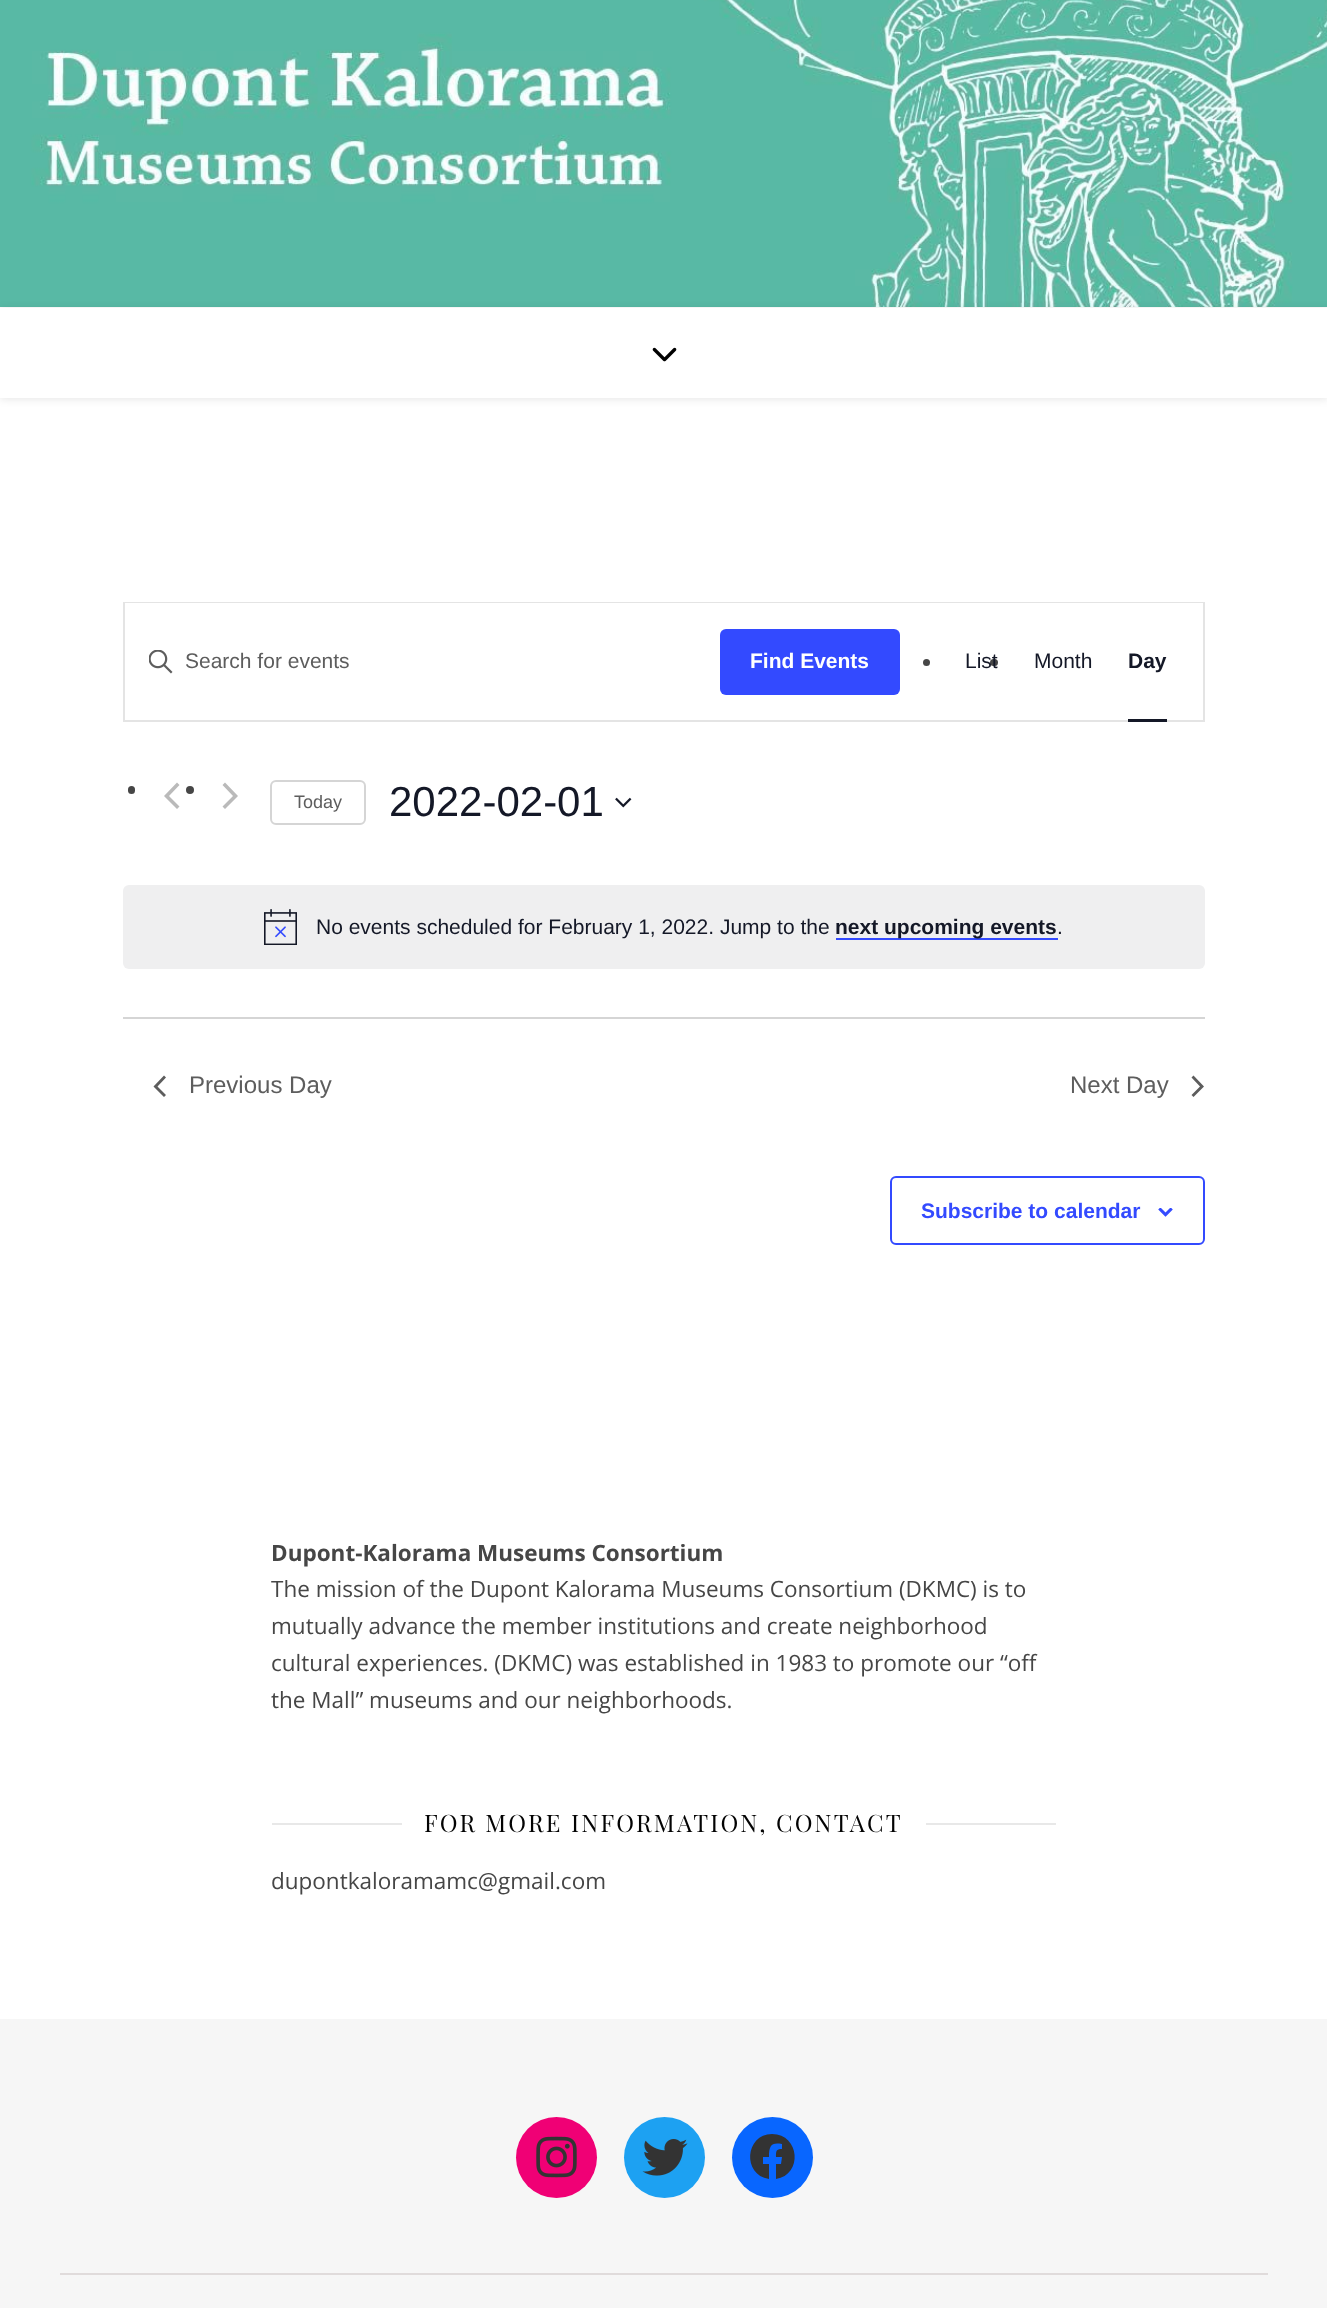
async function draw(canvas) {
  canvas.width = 1327;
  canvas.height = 2308;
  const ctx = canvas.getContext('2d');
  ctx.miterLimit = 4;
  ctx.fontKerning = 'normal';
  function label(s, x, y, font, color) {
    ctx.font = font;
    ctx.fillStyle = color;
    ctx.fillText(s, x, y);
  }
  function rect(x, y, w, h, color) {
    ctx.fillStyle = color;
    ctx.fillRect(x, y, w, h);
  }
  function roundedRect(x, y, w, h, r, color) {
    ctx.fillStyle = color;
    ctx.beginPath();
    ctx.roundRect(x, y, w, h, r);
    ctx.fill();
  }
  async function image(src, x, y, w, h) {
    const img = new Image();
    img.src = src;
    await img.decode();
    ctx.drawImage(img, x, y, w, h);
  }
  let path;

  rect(0, 0, 1327, 2308, '#fff');
  await image('assets/img1.png', 0, 0, 1327, 307);
  ctx.fillStyle = '#0000001a';
  ctx.filter = 'blur(4px)';
  ctx.beginPath();
  ctx.rect(0, 309, 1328, 90);
  ctx.fill();
  ctx.filter = 'none';
  rect(0, 308, 1327, 90, '#fff');
  await image('assets/img2.png', 652, 347, 25, 15);
  ctx.strokeStyle = '#e4e4e4';
  ctx.lineWidth = 2;
  ctx.strokeRect(124, 603, 1080, 118);
  rect(125, 603, 1078, 1, '#fff');
  await image('assets/img3.png', 149, 650, 24, 24);
  label('Search for events', 185, 668, '21px Liberation Sans', '#5d5d5d');
  roundedRect(720, 629, 180, 66, 6, '#334aff');
  label('Find Events', 750, 668, 'bold 21px Liberation Sans', '#fff');
  ctx.fillStyle = '#464646';
  ctx.beginPath();
  ctx.arc(926.5, 662.5, 3.5, 0, 2 * Math.PI);
  ctx.fill();
  roundedRect(990, 659, 8, 7, 3.5, '#464646');
  label('List', 965, 668, '21px Liberation Sans', '#141827');
  label('Month', 1034, 668, '21px Liberation Sans', '#141827');
  label('Day', 1128, 668, 'bold 21px Liberation Sans', '#141827');
  rect(1128, 719, 39, 3, '#141827');
  roundedRect(128, 786, 7, 8, 3.5, '#464646');
  ctx.fillStyle = '#bababa';
  path = new Path2D('M179.5 806.5L177 809L164 796L177 782.5L179.5 785L169 796Z');
  ctx.fill(path);
  ctx.fillStyle = '#464646';
  ctx.beginPath();
  ctx.arc(190, 790, 4, 0, 2 * Math.PI);
  ctx.fill();
  ctx.fillStyle = '#bababa';
  path = new Path2D('M222.5 785L225 782.5L238 796L225 809L222.5 806.5L233 796Z');
  ctx.fill(path);
  ctx.beginPath();
  ctx.roundRect(271, 781, 94, 43, 5);
  ctx.strokeStyle = '#d5d5d5';
  ctx.stroke();
  label('Today', 294, 808, '18px Liberation Sans', '#5d5d5d');
  label('2022-02-01', 389, 816, '42px Liberation Sans', '#141827');
  await image('assets/img4.png', 615, 797, 17, 11);
  roundedRect(123, 885, 1082, 84, 6, '#efeff0');
  await image('assets/img5.png', 264, 909, 33, 36);
  label('No events scheduled for February 1, 2022. Jump to the', 316, 934, '21px Liberation Sans', '#141827');
  rect(836, 938, 222, 2, '#334aff');
  label('next upcoming events', 835, 934, 'bold 21px Liberation Sans', '#141827');
  label('.', 1057, 934, '21px Liberation Sans', '#141827');
  rect(123, 1017, 1082, 2, '#d5d5d5');
  ctx.fillStyle = '#5d5d5d';
  path = new Path2D('M166 1095L164 1097L153.5 1086.5L164 1075.5L166 1077.5L157.5 1086.5Z');
  ctx.fill(path);
  label('Previous Day', 189, 1093, '24px Liberation Sans', '#5d5d5d');
  label('Next Day', 1070, 1093, '24px Liberation Sans', '#5d5d5d');
  path = new Path2D('M1191.5 1077.5L1193.5 1075.5L1204 1086.5L1193.5 1097L1191.5 1095L1200 1086.5Z');
  ctx.fill(path);
  ctx.beginPath();
  ctx.roundRect(891, 1177, 313, 67, 5);
  ctx.strokeStyle = '#334aff';
  ctx.stroke();
  label('Subscribe to calendar', 921, 1218, 'bold 21px Liberation Sans', '#334aff');
  await image('assets/img6.png', 1158, 1208, 15, 9);
  label('Dupont-Kalorama Museums Consortium', 271, 1561, 'bold 22.5px Open Sans', '#464646');
  label('The mission of the Dupont Kalorama Museums Consortium (DKMC) is to', 271, 1597, '22.5px Open Sans', '#464646');
  label('mutually advance the member institutions and create neighborhood', 271, 1634, '22.5px Open Sans', '#464646');
  label('cultural experiences. (DKMC) was established in 1983 to promote our “off', 271, 1671, '22.5px Open Sans', '#464646');
  label('the Mall” museums and our neighborhoods.', 271, 1708, '22.5px Open Sans', '#464646');
  rect(272, 1823, 130, 2, '#e8e8e8');
  ctx.letterSpacing = '2.25px';
  label('FOR MORE INFORMATION, CONTACT', 424, 1832, '24px Playfair Display', '#030303');
  rect(926, 1823, 130, 2, '#e8e8e8');
  ctx.letterSpacing = '0px';
  label('dupontkaloramamc@gmail.com', 271, 1889, '22.5px Open Sans', '#464646');
  rect(0, 2019, 1327, 289, '#f6f6f6');
  rect(60, 2273, 1208, 2, '#e0dbdb');
  ctx.fillStyle = '#f00075';
  ctx.beginPath();
  ctx.arc(556.5, 2157.5, 40.5, 0, 2 * Math.PI);
  ctx.fill();
  await image('assets/img7.png', 536, 2136, 41, 42);
  ctx.fillStyle = '#1da1f2';
  ctx.beginPath();
  ctx.arc(664.5, 2157.5, 40.5, 0, 2 * Math.PI);
  ctx.fill();
  await image('assets/img8.png', 642, 2139, 46, 37);
  ctx.fillStyle = '#0866ff';
  ctx.beginPath();
  ctx.arc(772.5, 2157.5, 40.5, 0, 2 * Math.PI);
  ctx.fill();
  ctx.fillStyle = '#333';
  path = new Path2D('M772 2134C745 2134 742 2175 769 2179V2164H763V2157H769C769 2146 771 2142 782 2144V2149C776 2149 776 2151 776 2157H782L781 2164H776V2179C803 2175 800 2134 772 2134Z');
  ctx.fill(path);
}

draw(document.querySelector('canvas'));
